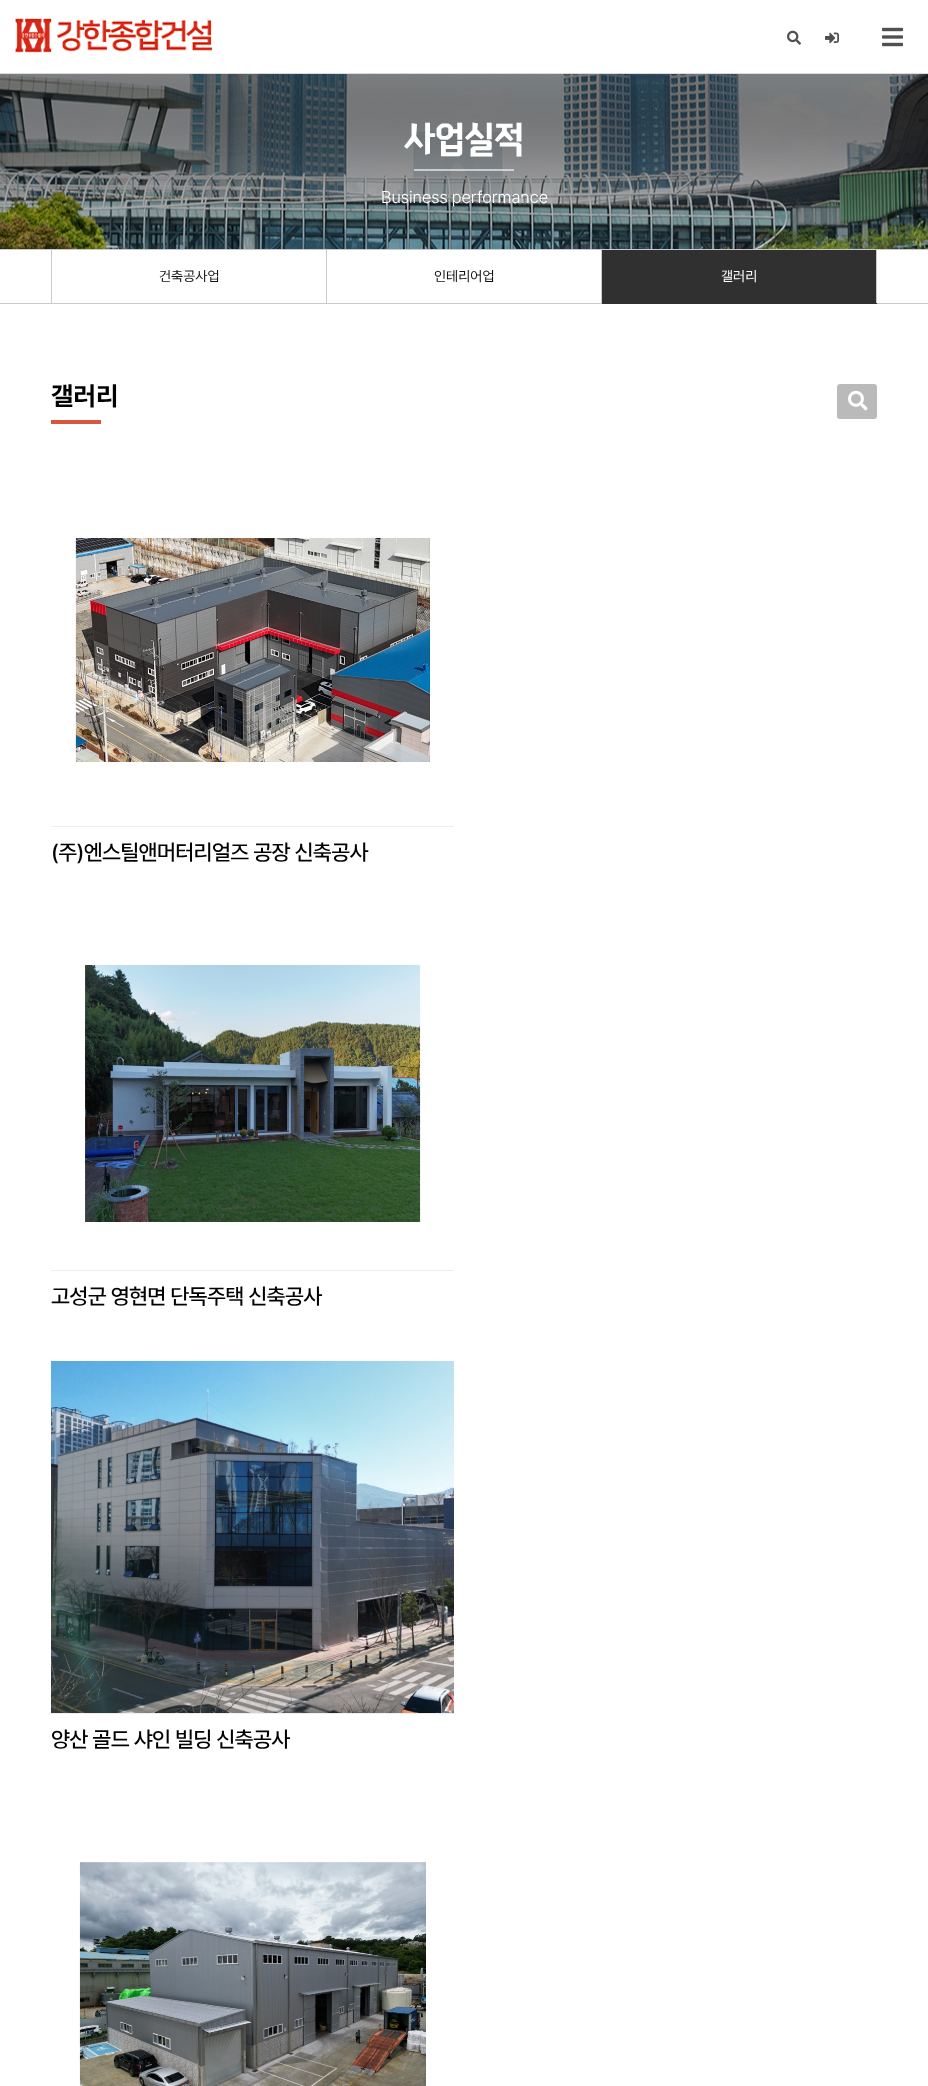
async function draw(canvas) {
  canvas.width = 928;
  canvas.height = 2086;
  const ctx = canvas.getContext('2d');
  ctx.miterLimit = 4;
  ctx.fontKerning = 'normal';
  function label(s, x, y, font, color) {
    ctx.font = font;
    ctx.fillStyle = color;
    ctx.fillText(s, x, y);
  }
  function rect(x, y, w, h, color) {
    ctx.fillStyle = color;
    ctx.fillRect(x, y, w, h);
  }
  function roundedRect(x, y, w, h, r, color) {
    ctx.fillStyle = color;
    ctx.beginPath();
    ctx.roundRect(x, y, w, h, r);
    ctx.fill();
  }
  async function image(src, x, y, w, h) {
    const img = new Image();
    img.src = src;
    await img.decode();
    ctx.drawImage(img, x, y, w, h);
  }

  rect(0, 0, 928, 2086, '#fff');
  rect(0, 73, 928, 1, '#dbdbdb');
  await image('assets/img1.png', 15, 18, 197, 35);
  await image('assets/img2.png', 787, 30, 14, 15);
  await image('assets/img3.png', 825, 32, 14, 12);
  await image('assets/img4.png', 882, 27, 21, 20);
  await image('assets/img5.png', 0, 74, 928, 175);
  label('사업실적', 404, 151, 'bold 36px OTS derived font', '#fff');
  rect(414, 169, 100, 2, '#ffffff99');
  label('Business performance', 381, 203, '300 17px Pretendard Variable', '#fff');
  rect(0, 249, 928, 1, '#cacaca');
  rect(0, 303, 928, 1, '#cacaca');
  rect(51, 250, 1, 54, '#cacaca');
  rect(326, 250, 1, 54, '#cacaca');
  label('건축공사업', 159, 281, '14px Pretendard Variable', '#101010');
  rect(601, 250, 1, 54, '#cacaca');
  label('인테리어업', 434, 281, '14px Pretendard Variable', '#101010');
  rect(602, 250, 274, 53, '#303030');
  rect(876, 250, 1, 54, '#cacaca');
  rect(602, 303, 275, 1, '#303030');
  label('갤러리', 721, 281, '14px Pretendard Variable', '#fff');
  label('갤러리', 51, 405, 'bold 26px Pretendard Variable', '#000');
  rect(51, 420, 50, 4, '#da553d');
  roundedRect(837, 384, 40, 35, 3, '#bababa');
  await image('assets/img6.png', 848, 390, 20, 21);
  rect(51, 826, 403, 1, '#eee');
  await image('assets/img7.png', 75, 538, 355, 224);
  ctx.letterSpacing = '-0.7px';
  label('(주)엔스틸앤머터리얼즈 공장 신축공사', 51, 860, '500 22px Pretendard Variable', '#000');
  rect(51, 1270, 403, 1, '#eee');
  await image('assets/img8.png', 85, 965, 336, 257);
  label('고성군 영현면 단독주택 신축공사', 51, 1304, '500 22px Pretendard Variable', '#000');
  rect(51, 1713, 403, 1, '#eee');
  await image('assets/img9.png', 51, 1361, 403, 352);
  label('양산 골드 샤인 빌딩 신축공사', 51, 1747, '500 22px Pretendard Variable', '#000');
  await image('assets/img10.png', 79, 1862, 347, 224);
}

draw(document.querySelector('canvas'));
